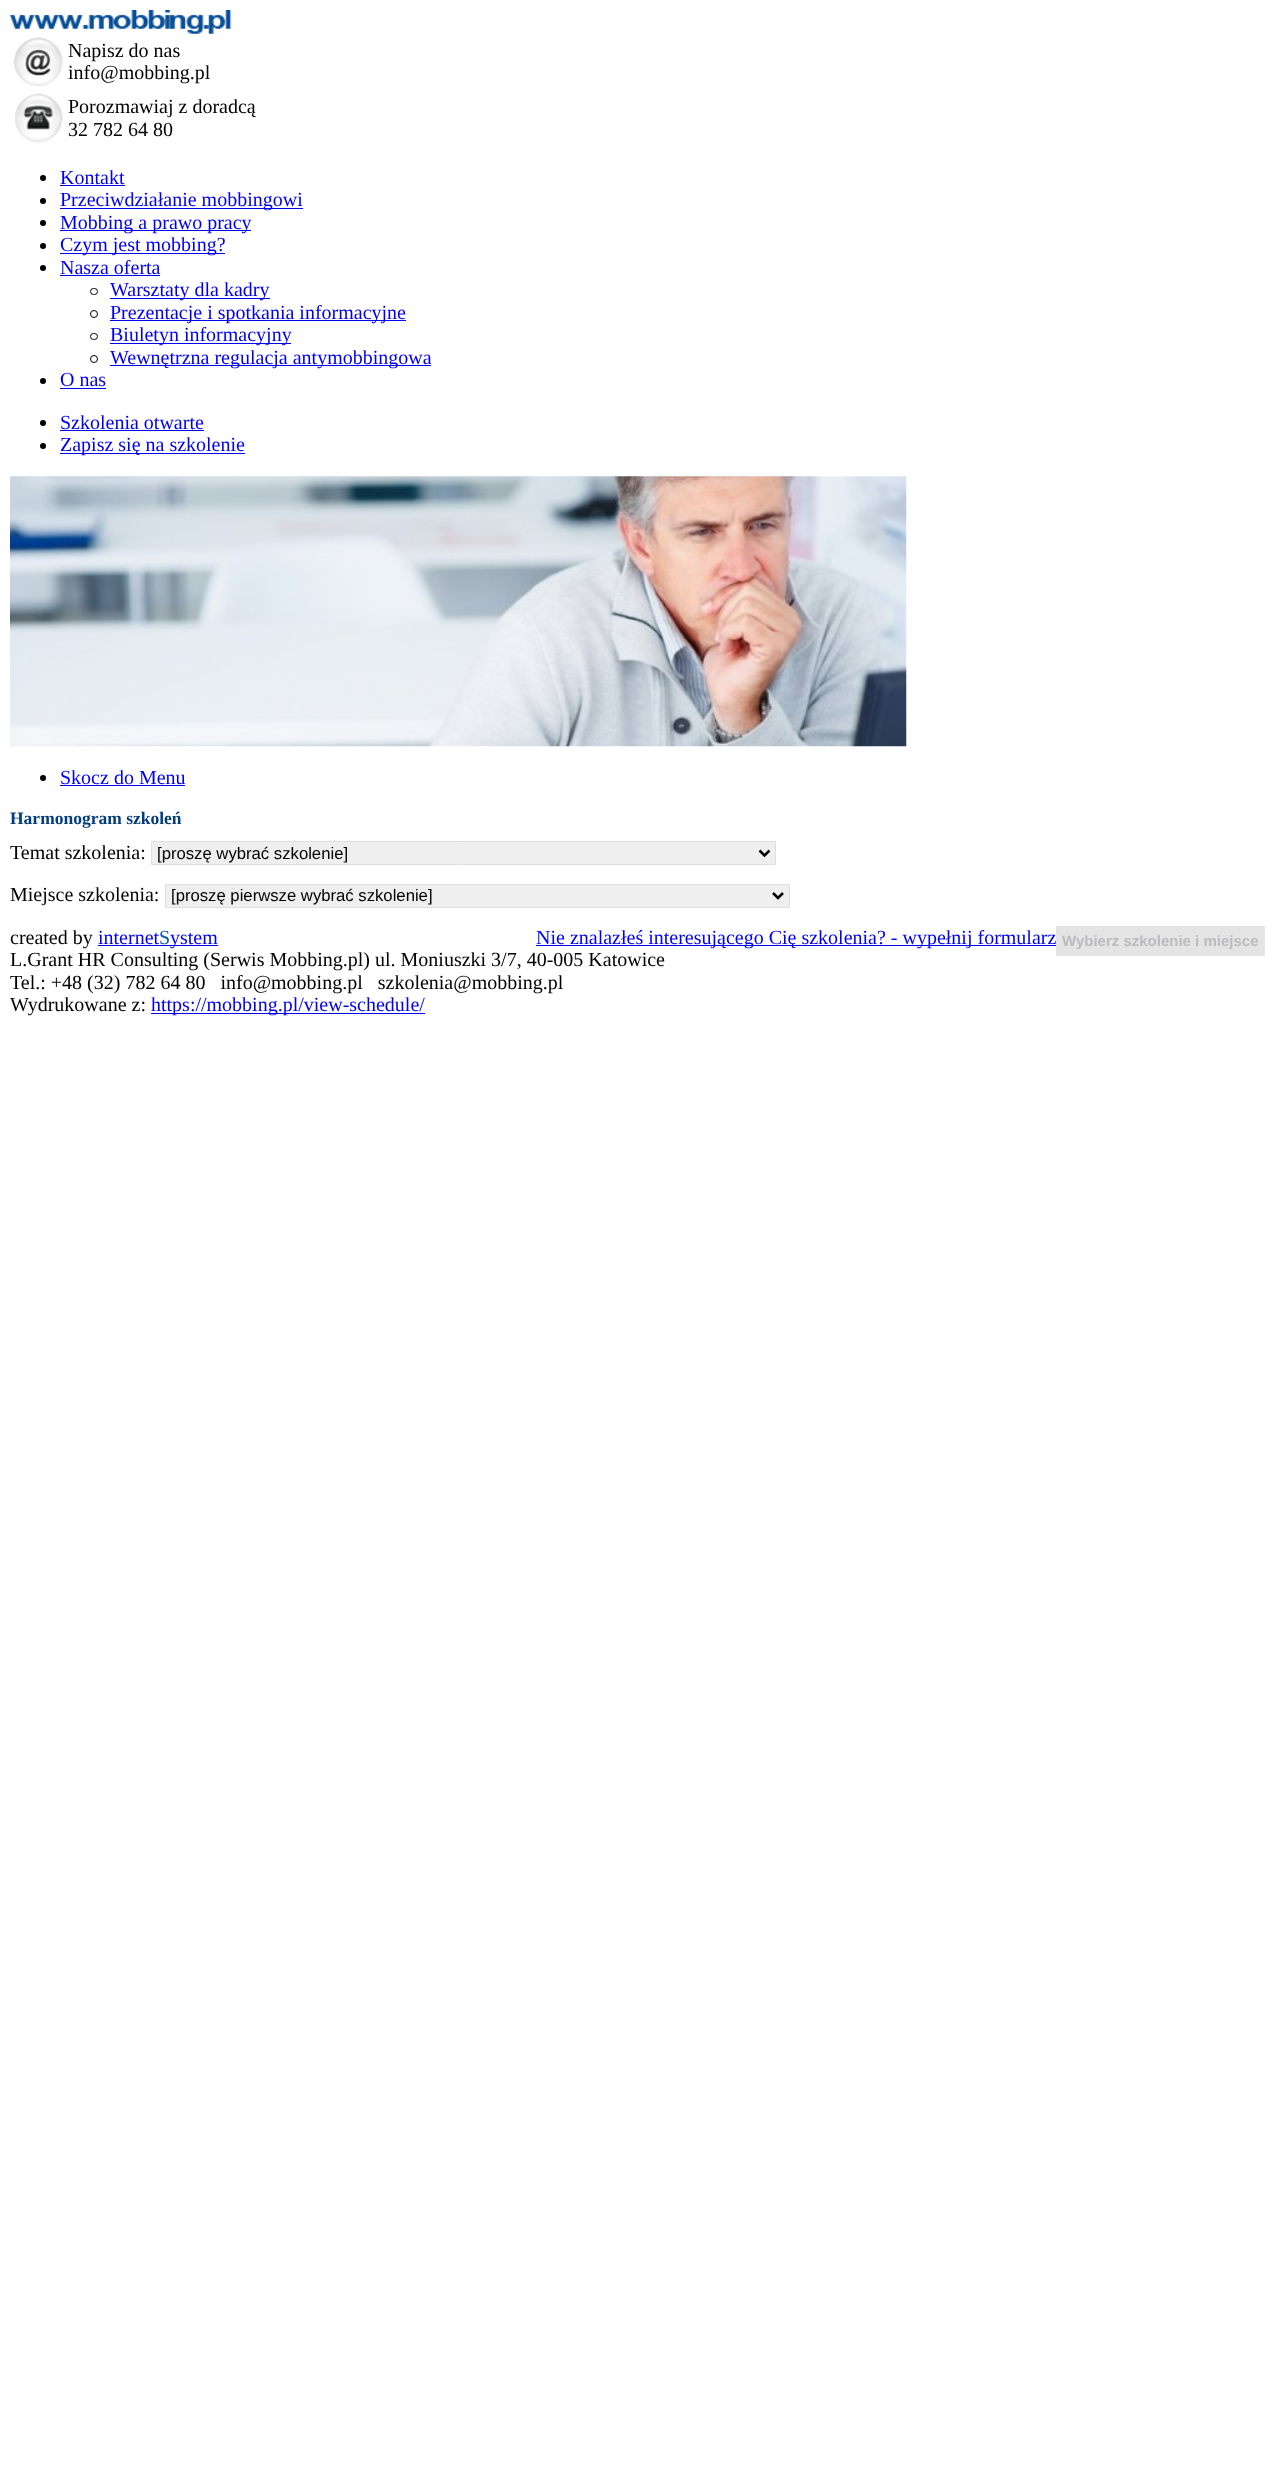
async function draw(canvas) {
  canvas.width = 1275;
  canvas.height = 2476;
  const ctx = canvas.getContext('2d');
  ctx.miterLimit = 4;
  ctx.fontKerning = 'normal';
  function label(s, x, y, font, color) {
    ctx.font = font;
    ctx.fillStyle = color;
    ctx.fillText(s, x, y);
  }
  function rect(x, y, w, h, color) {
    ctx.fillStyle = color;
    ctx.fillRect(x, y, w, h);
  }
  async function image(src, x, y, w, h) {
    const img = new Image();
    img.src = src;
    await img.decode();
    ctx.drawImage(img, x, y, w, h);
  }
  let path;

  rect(0, 0, 1275, 2476, '#fff');
  await image('assets/img1.png', 10, 10, 222, 24);
  await image('assets/img2.png', 13, 37, 50, 50);
  label('Napisz do nas', 68, 57, '20px Liberation Serif', '#000');
  label('info@mobbing.pl', 68, 79, '20px Liberation Serif', '#000');
  await image('assets/img3.png', 15, 93, 48, 50);
  label('Porozmawiaj z doradcą', 68, 113, '20px Liberation Serif', '#000');
  label('32 782 64 80', 68, 136, '20px Liberation Serif', '#000');
  ctx.beginPath();
  ctx.arc(43, 178, 3, 0, 2 * Math.PI);
  ctx.fill();
  label('Kontakt', 60, 184, '20px Liberation Serif', '#00e');
  rect(60, 185, 65, 1, '#00e');
  ctx.fillStyle = '#000';
  ctx.beginPath();
  ctx.arc(43, 201, 3, 0, 2 * Math.PI);
  ctx.fill();
  rect(60, 208, 243, 1, '#00e');
  label('Przeciwdziałanie mobbingowi', 60, 206, '20px Liberation Serif', '#00e');
  ctx.fillStyle = '#000';
  ctx.beginPath();
  ctx.arc(43, 223, 3, 0, 2 * Math.PI);
  ctx.fill();
  rect(60, 230, 191, 1, '#00e');
  label('Mobbing a prawo pracy', 60, 229, '20px Liberation Serif', '#00e');
  ctx.fillStyle = '#000';
  ctx.beginPath();
  ctx.arc(43, 246, 3, 0, 2 * Math.PI);
  ctx.fill();
  rect(60, 253, 165, 1, '#00e');
  label('Czym jest mobbing?', 60, 251, '20px Liberation Serif', '#00e');
  ctx.fillStyle = '#000';
  ctx.beginPath();
  ctx.arc(43, 268, 3, 0, 2 * Math.PI);
  ctx.fill();
  label('Nasza oferta', 60, 274, '20px Liberation Serif', '#00e');
  rect(60, 275, 100, 1, '#00e');
  ctx.beginPath();
  ctx.roundRect(90.5, 288.5, 7, 6, 3);
  ctx.strokeStyle = '#000';
  ctx.stroke();
  rect(110, 298, 160, 1, '#00e');
  label('Warsztaty dla kadry', 110, 296, '20px Liberation Serif', '#00e');
  ctx.beginPath();
  ctx.arc(94, 314, 3.5, 0, 2 * Math.PI);
  ctx.stroke();
  rect(110, 320, 296, 1, '#00e');
  label('Prezentacje i spotkania informacyjne', 110, 319, '20px Liberation Serif', '#00e');
  ctx.beginPath();
  ctx.roundRect(90.5, 333.5, 7, 6, 3);
  ctx.stroke();
  rect(110, 343, 181, 1, '#00e');
  label('Biuletyn informacyjny', 110, 341, '20px Liberation Serif', '#00e');
  ctx.beginPath();
  ctx.arc(94, 359, 3.5, 0, 2 * Math.PI);
  ctx.stroke();
  rect(110, 365, 321, 1, '#00e');
  label('Wewnętrzna regulacja antymobbingowa', 110, 364, '20px Liberation Serif', '#00e');
  ctx.fillStyle = '#000';
  ctx.beginPath();
  ctx.arc(43, 381, 3, 0, 2 * Math.PI);
  ctx.fill();
  label('O nas', 60, 386, '20px Liberation Serif', '#00e');
  rect(60, 388, 46, 1, '#00e');
  ctx.fillStyle = '#000';
  ctx.beginPath();
  ctx.arc(43, 423, 3, 0, 2 * Math.PI);
  ctx.fill();
  label('Szkolenia otwarte', 60, 429, '20px Liberation Serif', '#00e');
  rect(60, 430, 144, 1, '#00e');
  ctx.fillStyle = '#000';
  ctx.beginPath();
  ctx.arc(43, 446, 3, 0, 2 * Math.PI);
  ctx.fill();
  rect(60, 453, 185, 1, '#00e');
  label('Zapisz się na szkolenie', 60, 451, '20px Liberation Serif', '#00e');
  await image('assets/img4.png', 10, 476, 897, 271);
  ctx.fillStyle = '#000';
  ctx.beginPath();
  ctx.arc(43, 778, 3, 0, 2 * Math.PI);
  ctx.fill();
  label('Skocz do Menu', 60, 784, '20px Liberation Serif', '#00e');
  rect(60, 785, 125, 1, '#00e');
  label('Harmonogram szkoleń', 10, 824, 'bold 17.5px Liberation Serif', '#003d7a');
  label('Temat szkolenia:', 10, 859, '20px Liberation Serif', '#000');
  ctx.fillStyle = '#efefef';
  ctx.beginPath();
  ctx.rect(151.5, 841.5, 624, 23);
  ctx.fill();
  ctx.strokeStyle = '#dfdfdf';
  ctx.stroke();
  path = new Path2D('M759.5 850.5L764.5 855.5L769.5 850.5');
  ctx.strokeStyle = '#000';
  ctx.lineWidth = 2.5;
  ctx.stroke(path);
  label('[proszę wybrać szkolenie]', 157, 859, '16.7px Liberation Sans', '#000');
  label('Miejsce szkolenia:', 10, 901, '20px Liberation Serif', '#000');
  ctx.fillStyle = '#efefef';
  ctx.beginPath();
  ctx.rect(165.5, 884.5, 624, 23);
  ctx.fill();
  ctx.strokeStyle = '#dfdfdf';
  ctx.lineWidth = 1;
  ctx.stroke();
  path = new Path2D('M773 893L778 898L783 893');
  ctx.strokeStyle = '#000';
  ctx.lineWidth = 2.5;
  ctx.stroke(path);
  label('[proszę pierwsze wybrać szkolenie]', 171, 901, '16.7px Liberation Sans', '#000');
  rect(536, 945, 520, 1, '#00e');
  label('Nie znalazłeś interesującego Cię szkolenia? - wypełnij formularz', 536, 944, '20px Liberation Serif', '#00e');
  rect(1056, 926, 209, 30, '#e4e4e4');
  label('Wybierz szkolenie i miejsce', 1062, 946, 'bold 15px Liberation Sans', '#bbbbbe');
  label('created by', 10, 944, '20px Liberation Serif', '#000');
  label('internet', 98, 944, '20px Liberation Serif', '#00e');
  label('S', 159, 944, '20px Liberation Serif', '#0a539c');
  rect(98, 945, 120, 1, '#00e');
  label('ystem', 170, 944, '20px Liberation Serif', '#00e');
  label('L.Grant HR Consulting (Serwis Mobbing.pl) ul. Moniuszki 3/7, 40-005 Katowice', 10, 966, '20px Liberation Serif', '#000');
  label('Tel.: +48 (32) 782 64 80   info@mobbing.pl   szkolenia@mobbing.pl', 10, 989, '20px Liberation Serif', '#000');
  label('Wydrukowane z:', 10, 1011, '20px Liberation Serif', '#000');
  rect(151, 1013, 274, 1, '#00e');
  label('https://mobbing.pl/view-schedule/', 151, 1011, '20px Liberation Serif', '#00e');
}

draw(document.querySelector('canvas'));
